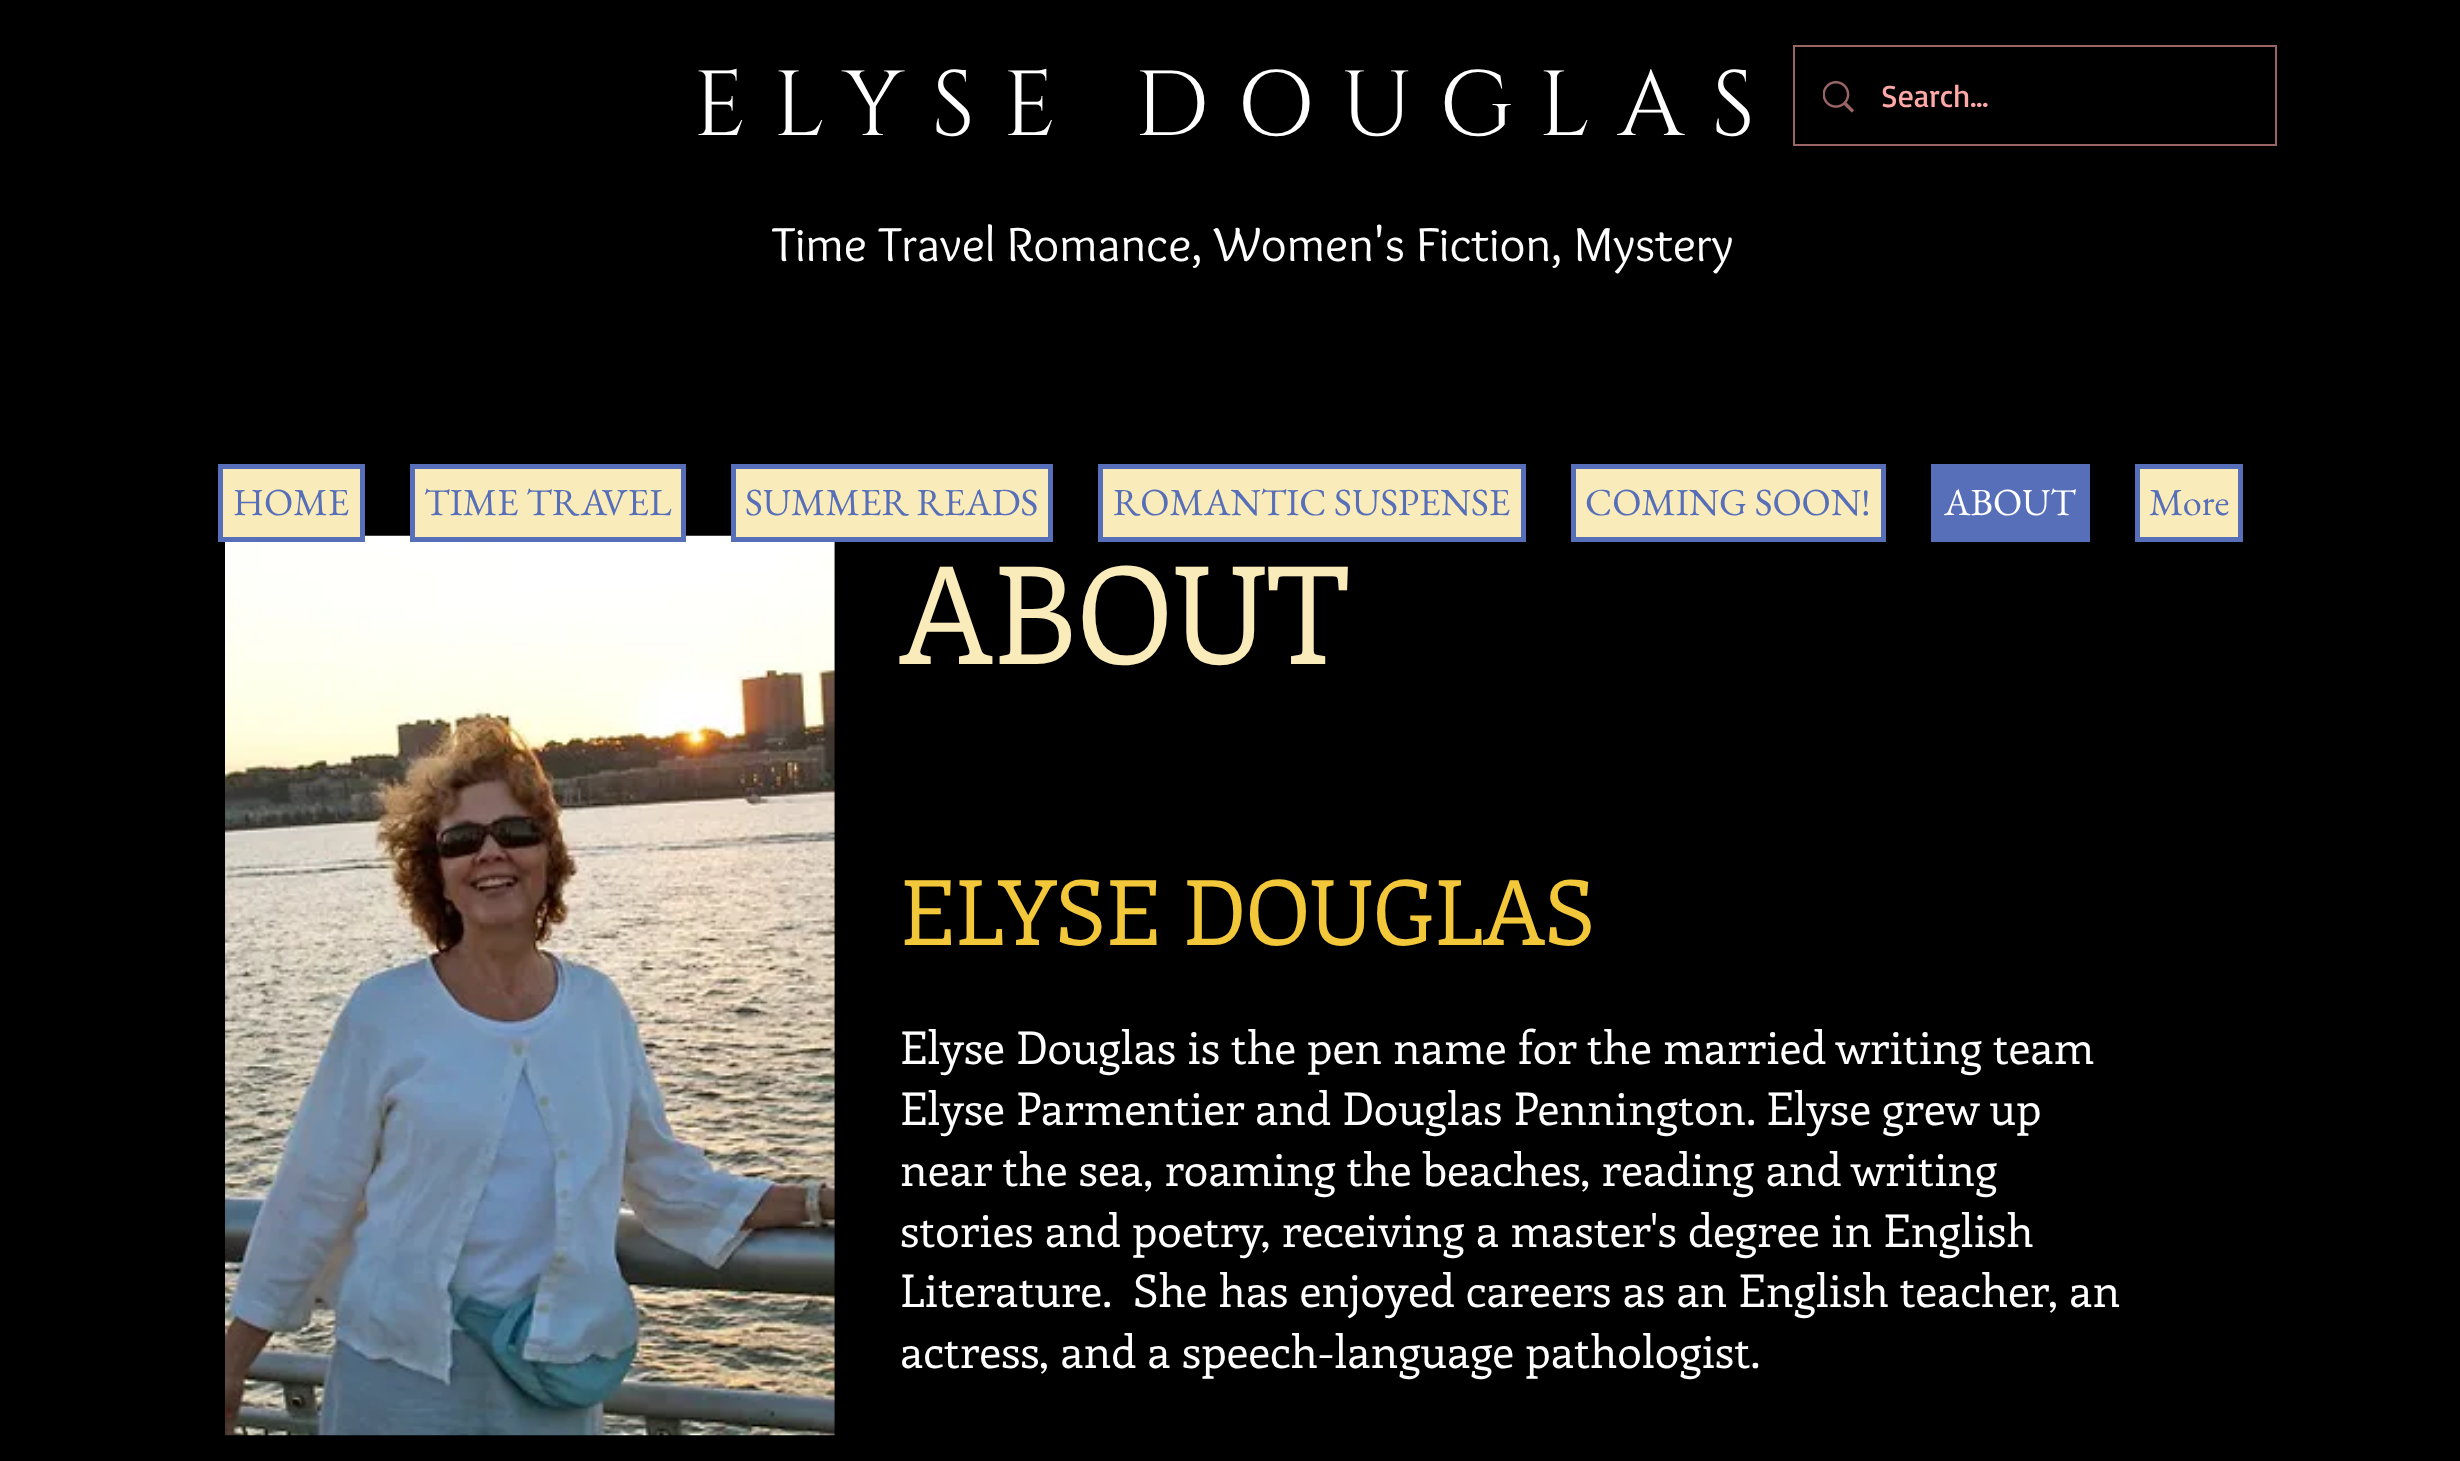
async function draw(canvas) {
  canvas.width = 2460;
  canvas.height = 1461;
  const ctx = canvas.getContext('2d');
  ctx.miterLimit = 4;
  ctx.fontKerning = 'normal';
  function label(s, x, y, font, color) {
    ctx.font = font;
    ctx.fillStyle = color;
    ctx.fillText(s, x, y);
  }
  function rect(x, y, w, h, color) {
    ctx.fillStyle = color;
    ctx.fillRect(x, y, w, h);
  }
  async function image(src, x, y, w, h) {
    const img = new Image();
    img.src = src;
    await img.decode();
    ctx.drawImage(img, x, y, w, h);
  }

  rect(0, 0, 2460, 1461, '#000');
  ctx.letterSpacing = '27.75px';
  label('ELYSE DOUGLAS', 693, 135, '92.25px Cinzel', '#fff');
  ctx.letterSpacing = '0px';
  label('Time Travel Romance, Women\'s Fiction, Mystery', 772, 261, '49.5px Overlock', '#fff');
  await image('assets/img2.png', 225, 535, 610, 901);
  ctx.fillStyle = '#faebbb';
  ctx.beginPath();
  ctx.rect(220.5, 466.5, 142, 73);
  ctx.fill();
  ctx.strokeStyle = '#566fb8';
  ctx.lineWidth = 5;
  ctx.stroke();
  label('HOME', 233, 515, '38.25px EB Garamond', '#566fb8');
  ctx.fillStyle = '#faebbb';
  ctx.beginPath();
  ctx.rect(412.5, 466.5, 271, 73);
  ctx.fill();
  ctx.stroke();
  label('TIME TRAVEL', 424, 515, '38.25px EB Garamond', '#566fb8');
  ctx.fillStyle = '#faebbb';
  ctx.beginPath();
  ctx.rect(733.5, 466.5, 317, 73);
  ctx.fill();
  ctx.stroke();
  label('SUMMER READS', 745, 515, '38.25px EB Garamond', '#566fb8');
  ctx.fillStyle = '#faebbb';
  ctx.beginPath();
  ctx.rect(1100.5, 466.5, 423, 73);
  ctx.fill();
  ctx.stroke();
  label('ROMANTIC SUSPENSE', 1113, 515, '38.25px EB Garamond', '#566fb8');
  ctx.fillStyle = '#faebbb';
  ctx.beginPath();
  ctx.rect(1573.5, 466.5, 310, 73);
  ctx.fill();
  ctx.stroke();
  label('COMING SOON!', 1585, 515, '38.25px EB Garamond', '#566fb8');
  rect(1931, 464, 159, 78, '#566fb8');
  label('ABOUT', 1944, 515, '38.25px EB Garamond', '#fff');
  ctx.fillStyle = '#faebbb';
  ctx.beginPath();
  ctx.rect(2137.5, 466.5, 103, 73);
  ctx.fill();
  ctx.stroke();
  label('More', 2149, 515, '38.25px EB Garamond', '#566fb8');
  ctx.strokeStyle = '#996565';
  ctx.lineWidth = 2;
  ctx.strokeRect(1794, 46, 482, 99);
  await image('assets/img1.png', 1823, 81, 31, 32);
  label('Search...', 1881, 107, '31.5px Basic', '#ffa8a8');
  label('ABOUT', 900, 664, '135px Enriqueta', '#faebbb');
  label('ELYSE DOUGLAS', 900, 945, '90px Enriqueta', '#f2c73a');
  label('Elyse Douglas is the pen name for the married writing team', 900, 1064, '45px Enriqueta', '#fff');
  label('Elyse Parmentier and Douglas Pennington. Elyse grew up', 900, 1125, '45px Enriqueta', '#fff');
  label('near the sea, roaming the beaches, reading and writing', 900, 1186, '45px Enriqueta', '#fff');
  label('stories and poetry, receiving a master\'s degree in English', 900, 1247, '45px Enriqueta', '#fff');
  label('Literature.  She has enjoyed careers as an English teacher, an', 900, 1307, '45px Enriqueta', '#fff');
  label('actress, and a speech-language pathologist.', 900, 1368, '45px Enriqueta', '#fff');
}

draw(document.querySelector('canvas'));
